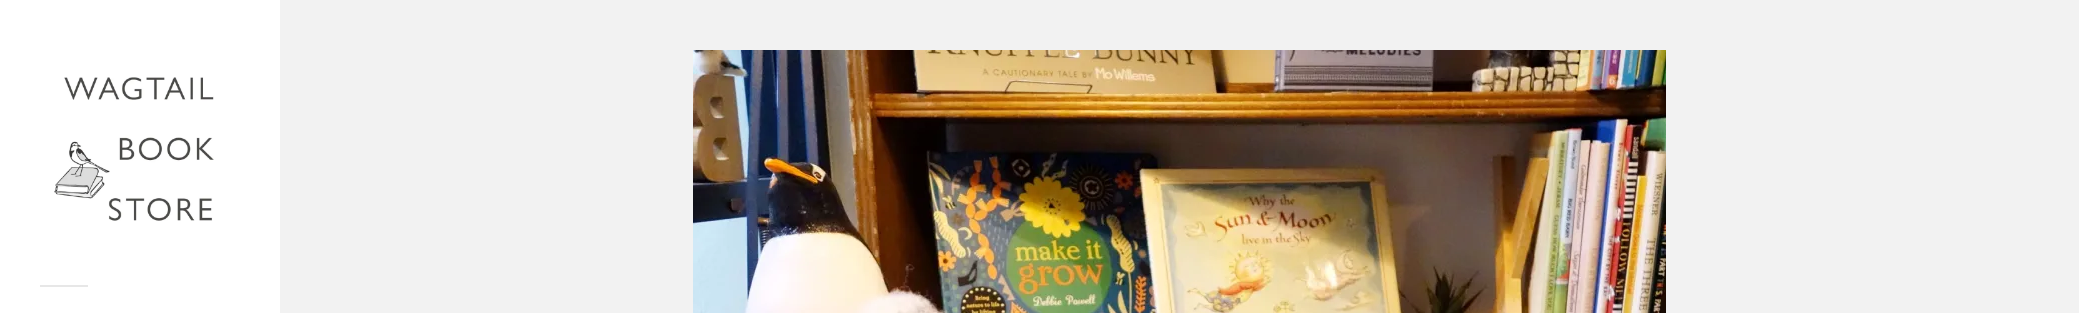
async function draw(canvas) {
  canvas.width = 2079;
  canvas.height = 313;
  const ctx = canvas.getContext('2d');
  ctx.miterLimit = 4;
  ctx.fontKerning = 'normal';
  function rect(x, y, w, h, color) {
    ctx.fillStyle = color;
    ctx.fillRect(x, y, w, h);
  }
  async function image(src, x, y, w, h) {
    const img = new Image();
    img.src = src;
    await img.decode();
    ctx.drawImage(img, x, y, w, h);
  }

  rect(0, 0, 2079, 313, '#f2f2f2');
  rect(0, 0, 280, 313, '#fff');
  await image('assets/img1.png', 54, 77, 160, 144);
  rect(40, 285, 48, 2, '#e7e7e7');
  await image('assets/img2.png', 693, 50, 973, 263);
}

draw(document.querySelector('canvas'));
